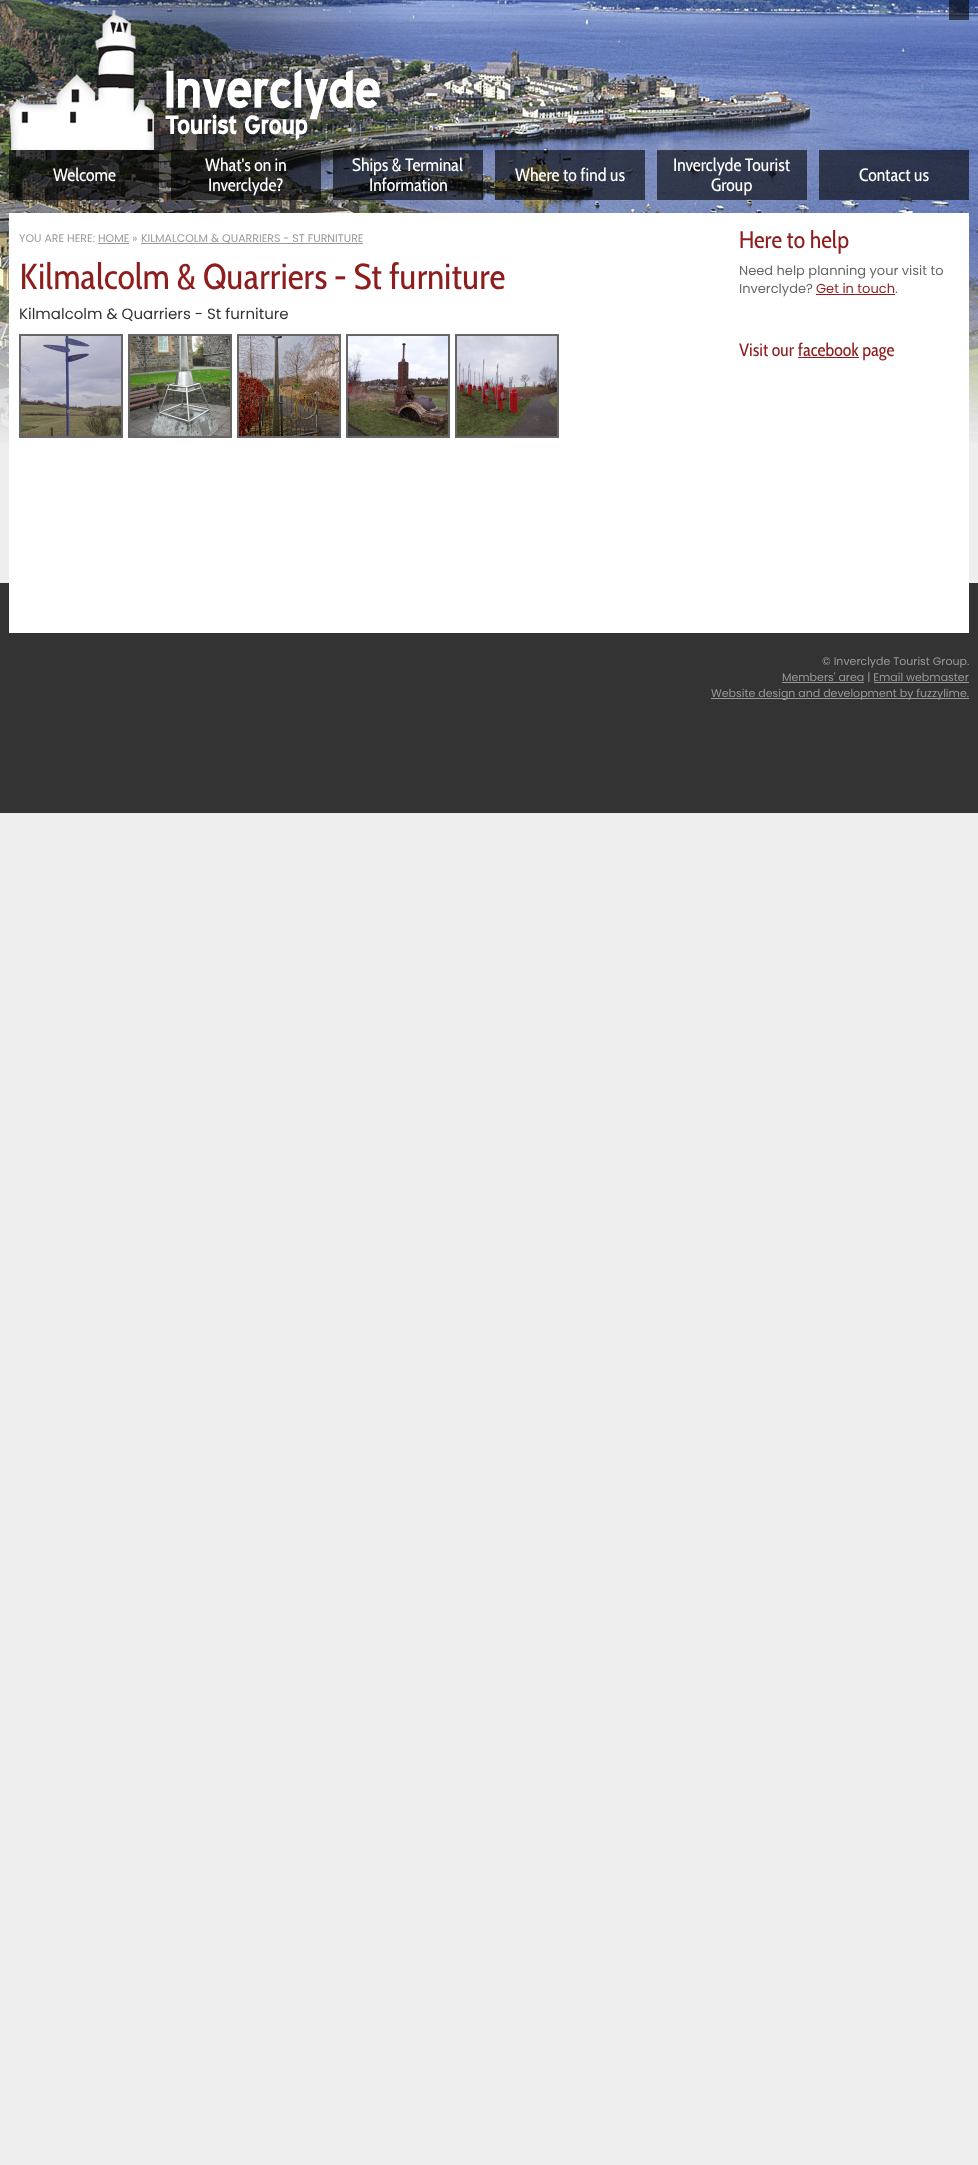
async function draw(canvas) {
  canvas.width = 978;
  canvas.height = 2165;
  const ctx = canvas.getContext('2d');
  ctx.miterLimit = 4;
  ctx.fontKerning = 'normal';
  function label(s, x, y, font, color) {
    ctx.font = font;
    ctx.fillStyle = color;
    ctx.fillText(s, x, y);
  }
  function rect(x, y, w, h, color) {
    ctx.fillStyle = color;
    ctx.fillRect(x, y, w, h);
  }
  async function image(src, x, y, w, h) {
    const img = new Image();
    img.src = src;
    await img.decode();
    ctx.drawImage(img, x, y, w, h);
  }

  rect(0, 0, 978, 2165, '#eee');
  await image('assets/img1.png', 0, 0, 978, 443);
  await image('assets/img2.png', 9, 10, 376, 140);
  rect(949, 0, 20, 20, '#00000099');
  rect(9, 150, 150, 50, '#00000099');
  label('Welcome', 53, 181, '18px Cabin Condensed', '#fff');
  rect(171, 150, 150, 50, '#00000099');
  label('What\'s on in', 205, 171, '18px Cabin Condensed', '#fff');
  label('Inverclyde?', 208, 191, '18px Cabin Condensed', '#fff');
  rect(333, 150, 150, 50, '#00000099');
  label('Ships & Terminal', 352, 171, '18px Cabin Condensed', '#fff');
  label('Information', 369, 191, '18px Cabin Condensed', '#fff');
  rect(495, 150, 150, 50, '#00000099');
  label('Where to find us', 515, 181, '18px Cabin Condensed', '#fff');
  rect(657, 150, 150, 50, '#00000099');
  label('Inverclyde Tourist', 673, 171, '18px Cabin Condensed', '#fff');
  label('Group', 711, 191, '18px Cabin Condensed', '#fff');
  rect(819, 150, 150, 50, '#00000099');
  label('Contact us', 859, 181, '18px Cabin Condensed', '#fff');
  rect(0, 583, 978, 230, '#333');
  rect(9, 213, 960, 420, '#fff');
  label('YOU ARE HERE: HOME »', 19, 242, '11px Poppins', '#999');
  rect(141, 243, 222, 1, '#999');
  label('KILMALCOLM & QUARRIERS - ST FURNITURE', 141, 242, '11px Poppins', '#999');
  rect(98, 243, 31, 1, '#999');
  label('Kilmalcolm & Quarriers - St furniture', 19, 289, '36px Cabin Condensed', '#8e1d1d');
  label('Kilmalcolm & Quarriers - St furniture', 19, 319, '15px Poppins', '#333');
  ctx.strokeStyle = '#666';
  ctx.lineWidth = 2;
  ctx.strokeRect(20, 335, 102, 102);
  await image('assets/img3.png', 21, 336, 100, 100);
  ctx.strokeRect(129, 335, 102, 102);
  await image('assets/img4.png', 130, 336, 100, 100);
  ctx.strokeRect(238, 335, 102, 102);
  await image('assets/img5.png', 239, 336, 100, 100);
  ctx.strokeRect(347, 335, 102, 102);
  await image('assets/img6.png', 348, 336, 100, 100);
  ctx.strokeRect(456, 335, 102, 102);
  await image('assets/img7.png', 457, 336, 100, 100);
  label('Here to help', 739, 248, '24px Cabin Condensed', '#8e1d1d');
  label('Need help planning your visit to', 739, 275, '13px Poppins', '#666');
  label('Inverclyde?', 739, 293, '13px Poppins', '#666');
  label('Get in touch', 816, 293, '13px Poppins', '#8e1d1d');
  rect(816, 294, 79, 1, '#8e1d1d');
  label('.', 895, 293, '13px Poppins', '#666');
  label('Visit our facebook page', 739, 356, '18px Cabin Condensed', '#8e1d1d');
  rect(798, 357, 61, 1, '#8e1d1d');
  label('© Inverclyde Tourist Group.', 822, 665, '11px Poppins', '#999');
  rect(782, 682, 82, 1, '#999');
  label('Members\' area | Email webmaster', 782, 681, '11px Poppins', '#999');
  rect(874, 682, 95, 1, '#999');
  rect(711, 698, 258, 1, '#999');
  label('Website design and development by fuzzylime.', 711, 697, '11px Poppins', '#999');
}

draw(document.querySelector('canvas'));
